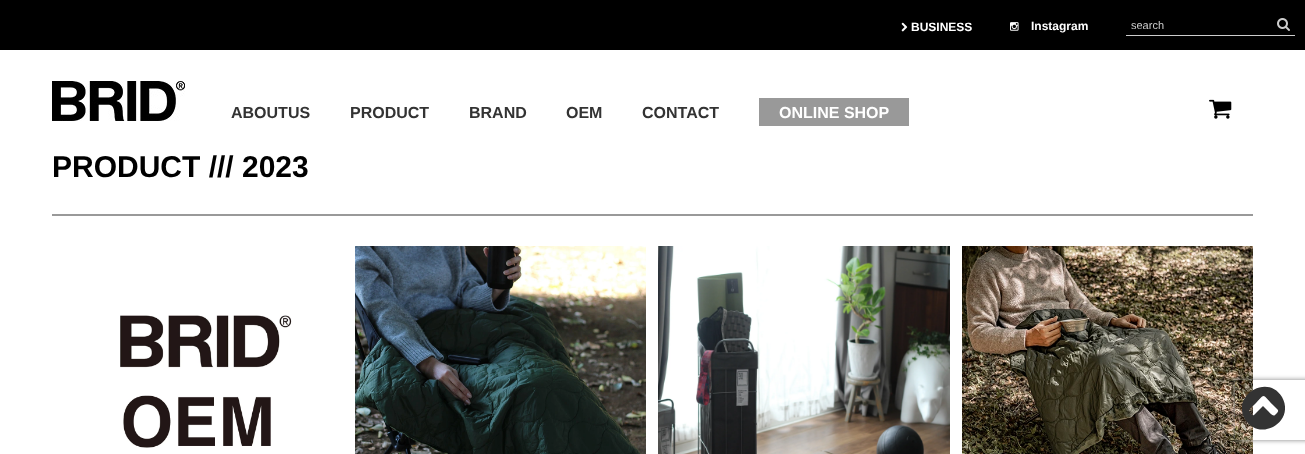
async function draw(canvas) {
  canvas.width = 1305;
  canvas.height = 454;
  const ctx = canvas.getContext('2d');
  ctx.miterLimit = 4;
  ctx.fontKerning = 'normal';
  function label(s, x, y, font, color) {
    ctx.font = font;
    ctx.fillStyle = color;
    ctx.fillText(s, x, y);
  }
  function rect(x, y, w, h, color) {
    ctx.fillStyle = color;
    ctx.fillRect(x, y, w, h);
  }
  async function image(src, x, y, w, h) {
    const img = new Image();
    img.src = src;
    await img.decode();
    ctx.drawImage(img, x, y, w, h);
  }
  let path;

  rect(0, 0, 1305, 454, '#fff');
  rect(0, 0, 1305, 50, '#000');
  await image('assets/img1.png', 901, 22, 7, 10);
  label('BUSINESS', 911, 31, 'bold 12px Liberation Sans', '#fff');
  await image('assets/img2.png', 1010, 22, 9, 9);
  label('Instagram', 1031, 30, 'bold 12px Liberation Sans', '#fff');
  rect(1126, 35, 169, 1, '#ccc');
  label('search', 1131, 29, '11px Liberation Sans', '#ccc');
  await image('assets/img3.png', 1277, 18, 13, 13);
  await image('assets/img4.png', 52, 81, 133, 40);
  label('ABOUTUS', 231, 118, 'bold 16px Liberation Sans', '#333');
  label('PRODUCT', 350, 118, 'bold 16px Liberation Sans', '#333');
  label('BRAND', 469, 118, 'bold 16px Liberation Sans', '#333');
  label('OEM', 566, 118, 'bold 16px Liberation Sans', '#333');
  label('CONTACT', 642, 118, 'bold 16px Liberation Sans', '#333');
  rect(759, 98, 150, 28, '#999');
  label('ONLINE SHOP', 779, 118, 'bold 16px Liberation Sans', '#fff');
  await image('assets/img5.png', 1209, 99, 23, 20);
  label('PRODUCT /// 2023', 52, 177, 'bold 30px Liberation Sans', '#000');
  rect(52, 214, 1201, 2, '#999');
  await image('assets/img6.png', 120, 315, 172, 133);
  await image('assets/img7.png', 355, 246, 291, 208);
  await image('assets/img8.png', 658, 246, 292, 208);
  await image('assets/img9.png', 962, 246, 291, 208);
  ctx.fillStyle = '#333';
  path = new Path2D('M1275 415C1280 410 1279 411 1273 405C1261 393 1266 393 1254 405C1250 409 1247 410 1251 414C1252 414 1253 416 1254 415L1263 406L1269 412C1270 413 1273 417 1275 415ZM1282 397C1296 422 1259 443 1245 419C1231 395 1268 373 1282 397Z');
  ctx.fill(path);
  ctx.save();
  path = new Path2D('M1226 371H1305V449H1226ZM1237 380H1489C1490 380 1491 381 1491 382V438C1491 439 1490 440 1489 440H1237C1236 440 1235 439 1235 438V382C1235 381 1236 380 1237 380Z');
  ctx.clip(path, 'evenodd');
  ctx.fillStyle = '#808080';
  ctx.filter = 'blur(2.5px)';
  ctx.beginPath();
  ctx.roundRect(1235, 380, 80, 60, 2);
  ctx.fill();
  ctx.filter = 'none';
  ctx.restore();
}

draw(document.querySelector('canvas'));
